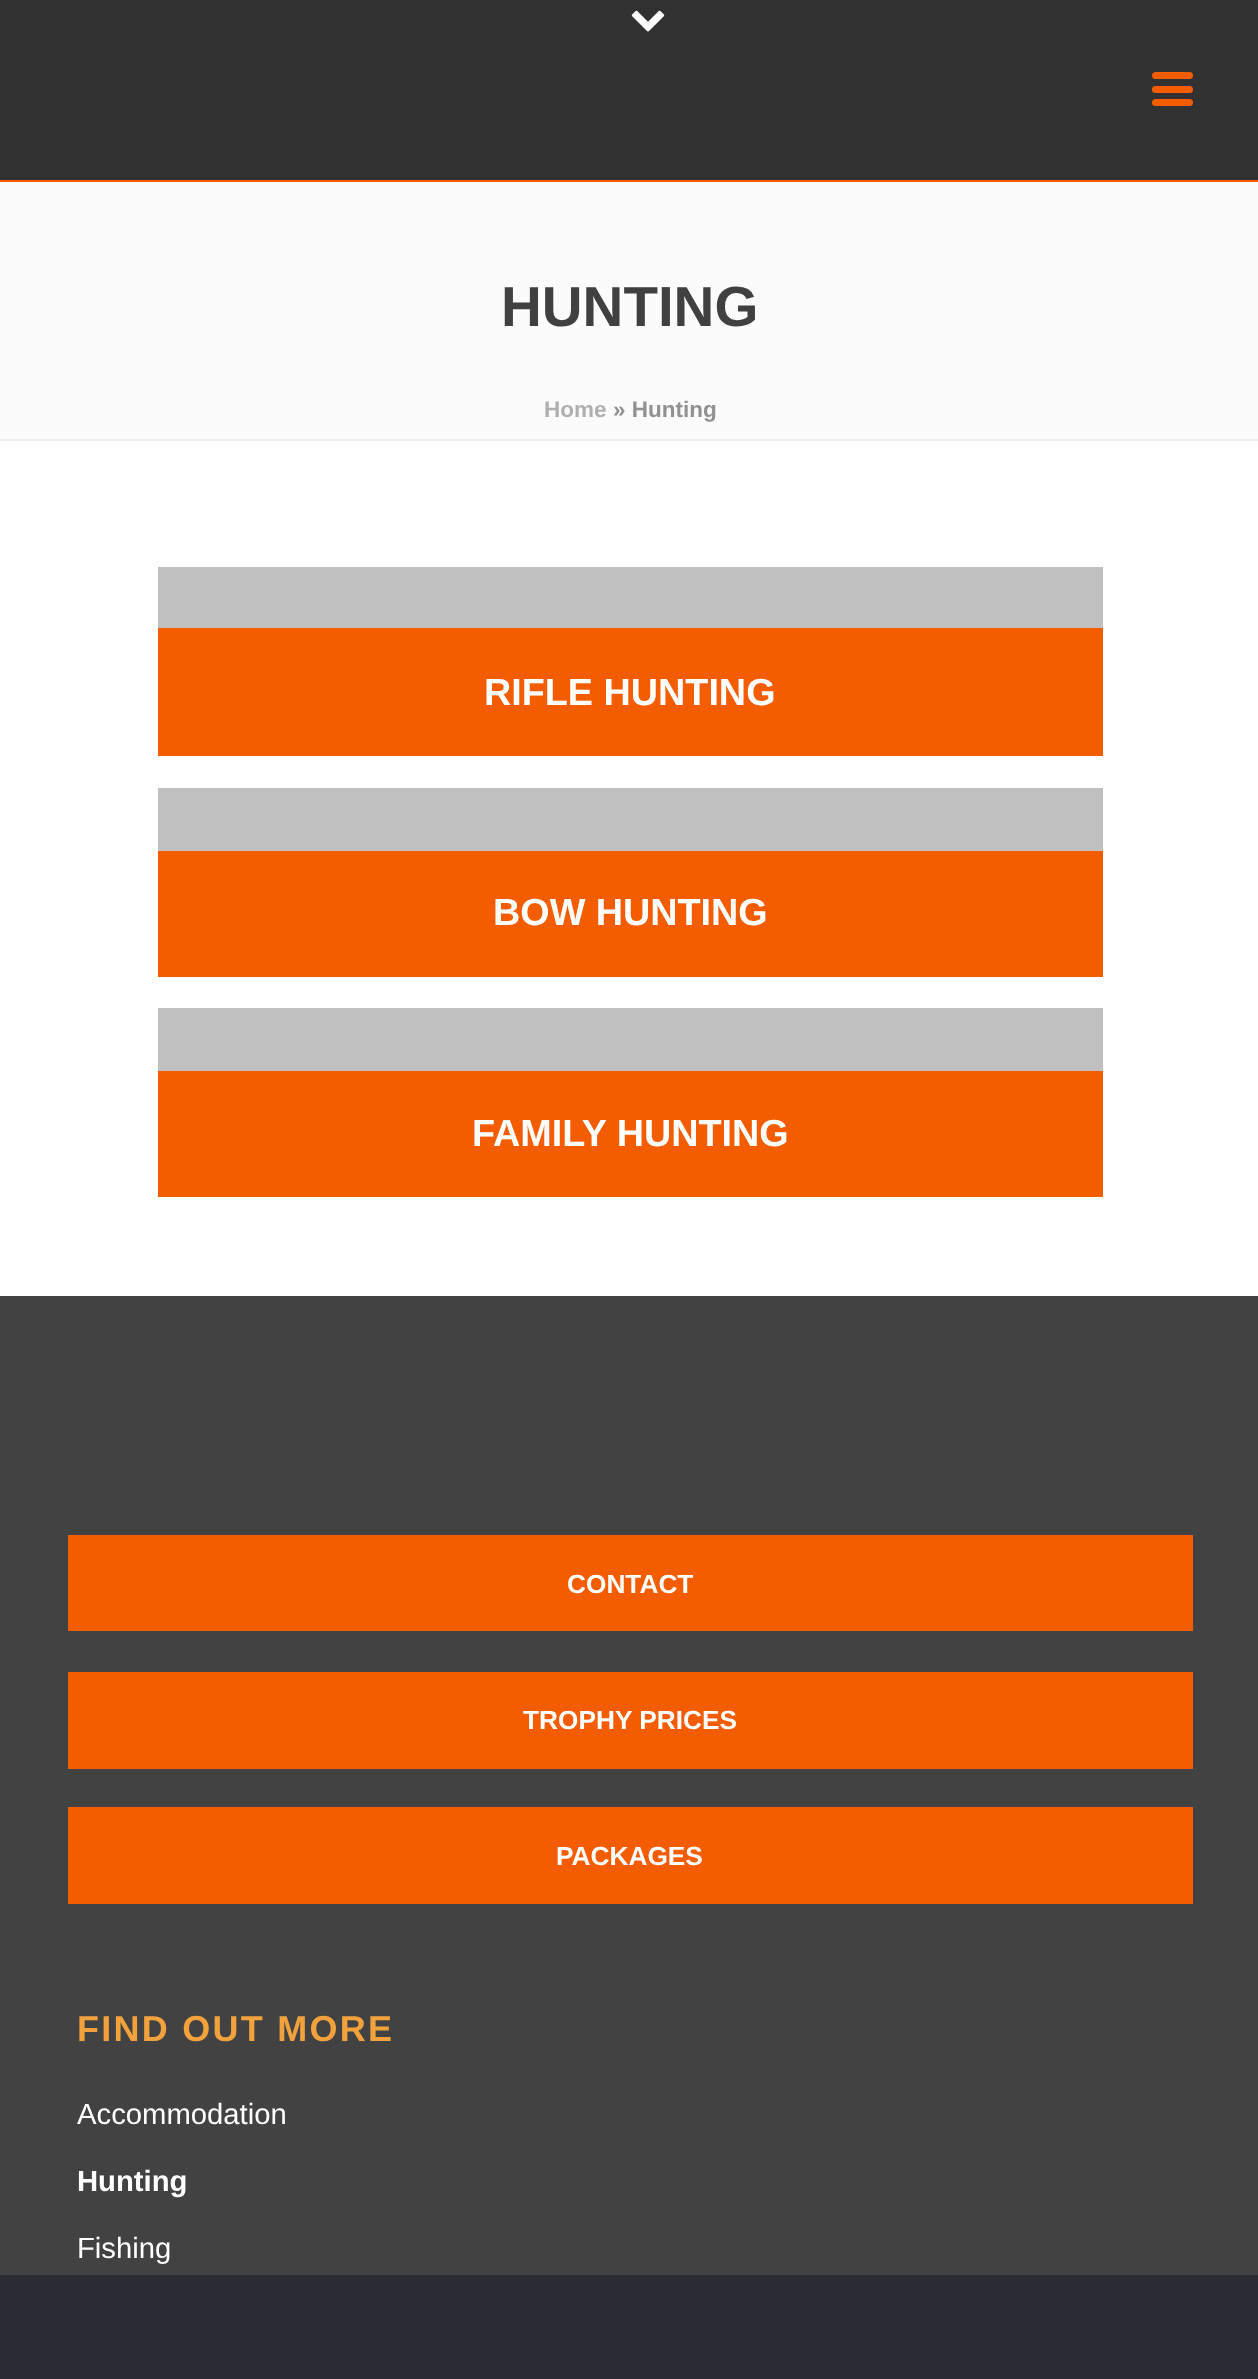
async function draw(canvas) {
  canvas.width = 1258;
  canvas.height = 2379;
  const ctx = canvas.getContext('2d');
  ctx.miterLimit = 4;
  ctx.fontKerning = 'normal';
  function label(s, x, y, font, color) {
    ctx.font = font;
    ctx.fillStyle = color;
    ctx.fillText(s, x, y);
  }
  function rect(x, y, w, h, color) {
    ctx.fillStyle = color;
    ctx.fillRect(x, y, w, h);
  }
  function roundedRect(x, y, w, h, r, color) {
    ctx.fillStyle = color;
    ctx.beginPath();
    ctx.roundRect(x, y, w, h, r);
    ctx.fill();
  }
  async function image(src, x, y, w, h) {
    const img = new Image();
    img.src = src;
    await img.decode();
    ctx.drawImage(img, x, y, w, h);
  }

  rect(0, 0, 1258, 2379, '#fff');
  rect(0, 182, 1258, 257, '#fbfbfb');
  rect(0, 439, 1258, 2, '#ededed');
  rect(0, 180, 1258, 2, '#f35d00');
  rect(0, 0, 1258, 180, '#313131');
  await image('assets/img1.png', 631, 10, 34, 22);
  roundedRect(1152, 72, 41, 7, 3.5, '#f35d00');
  roundedRect(1152, 86, 41, 7, 3.5, '#f35d00');
  roundedRect(1152, 99, 41, 7, 3.5, '#f35d00');
  label('HUNTING', 501, 326, 'bold 56.5px Liberation Sans', '#404040');
  label('Home', 544, 417, 'bold 22.5px Liberation Sans', '#afafaf');
  label('» Hunting', 613, 417, 'bold 22.5px Liberation Sans', '#919191');
  rect(158, 567, 945, 61, '#c0c0c0');
  rect(158, 628, 945, 128, '#f35d00');
  label('RIFLE HUNTING', 484, 705, 'bold 37.75px Liberation Sans', '#fff');
  rect(158, 788, 945, 63, '#c0c0c0');
  rect(158, 851, 945, 126, '#f35d00');
  label('BOW HUNTING', 493, 925, 'bold 37.75px Liberation Sans', '#fff');
  rect(158, 1008, 945, 63, '#c0c0c0');
  rect(158, 1071, 945, 126, '#f35d00');
  label('FAMILY HUNTING', 472, 1146, 'bold 37.75px Liberation Sans', '#fff');
  rect(0, 1296, 1258, 979, '#424242');
  rect(68, 1535, 1125, 96, '#f45c00');
  label('CONTACT', 567, 1593, 'bold 26.25px Liberation Sans', '#fff');
  rect(68, 1672, 1125, 97, '#f45c00');
  label('TROPHY PRICES', 523, 1729, 'bold 26.25px Liberation Sans', '#fff');
  rect(68, 1807, 1125, 97, '#f45c00');
  label('PACKAGES', 556, 1865, 'bold 26.25px Liberation Sans', '#fff');
  ctx.letterSpacing = '2.25px';
  label('FIND OUT MORE', 77, 2041, 'bold 36px Liberation Sans', '#f1a23d');
  ctx.letterSpacing = '0px';
  label('Accommodation', 77, 2124, '29.25px Liberation Sans', '#fff');
  label('Hunting', 77, 2191, 'bold 29.25px Liberation Sans', '#fff');
  label('Fishing', 77, 2258, '29.25px Liberation Sans', '#fff');
  rect(0, 2275, 1258, 104, '#2a2c33');
}

draw(document.querySelector('canvas'));
